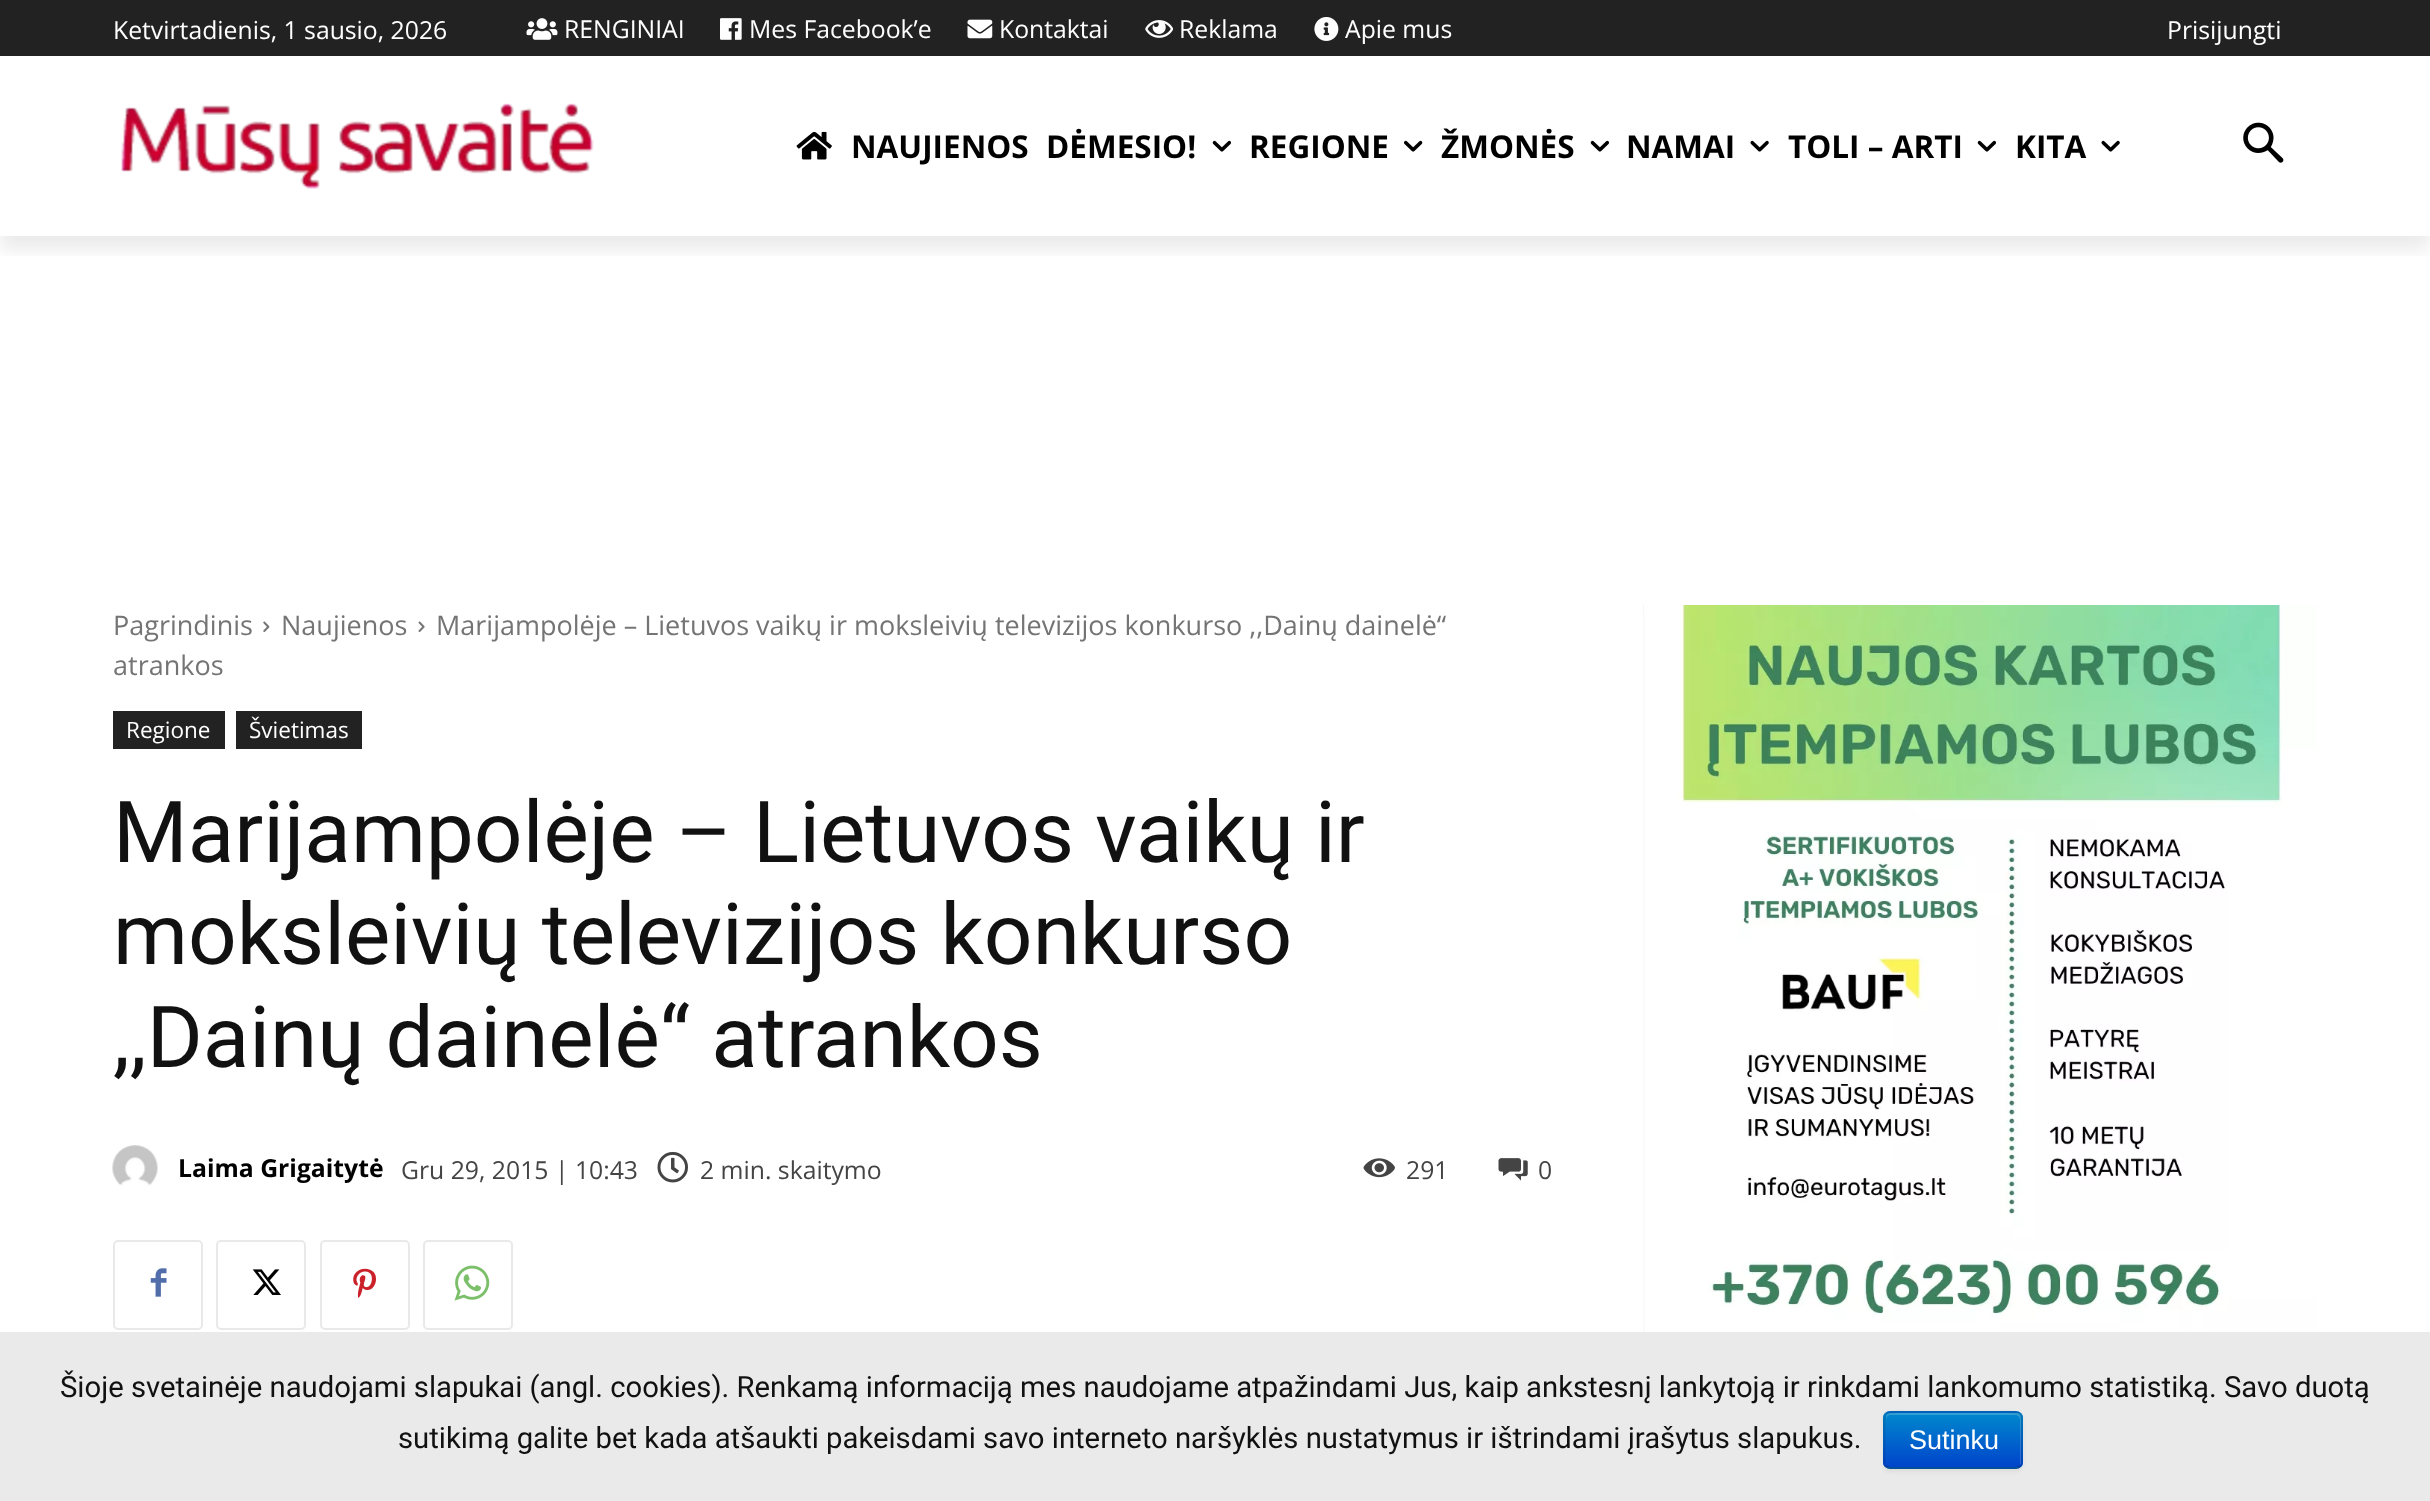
async function draw(canvas) {
  canvas.width = 2430;
  canvas.height = 1501;
  const ctx = canvas.getContext('2d');
  ctx.miterLimit = 4;
  ctx.fontKerning = 'normal';
  function label(s, x, y, font, color) {
    ctx.font = font;
    ctx.fillStyle = color;
    ctx.fillText(s, x, y);
  }
  function rect(x, y, w, h, color) {
    ctx.fillStyle = color;
    ctx.fillRect(x, y, w, h);
  }
  function roundedRect(x, y, w, h, r, color) {
    ctx.fillStyle = color;
    ctx.beginPath();
    ctx.roundRect(x, y, w, h, r);
    ctx.fill();
  }
  async function image(src, x, y, w, h) {
    const img = new Image();
    img.src = src;
    await img.decode();
    ctx.drawImage(img, x, y, w, h);
  }
  let gradient, path;

  rect(0, 0, 2430, 1501, '#fff');
  rect(0, 0, 2430, 56, '#222');
  label('Ketvirtadienis, 1 sausio, 2026', 113, 39, '24.75px Open Sans', '#fff');
  await image('assets/img1.png', 526, 18, 32, 22);
  label('RENGINIAI', 564, 38, '24.75px Open Sans', '#fff');
  await image('assets/img2.png', 720, 18, 22, 22);
  label('Mes Facebook’e', 749, 38, '24.75px Open Sans', '#fff');
  await image('assets/img3.png', 967, 19, 26, 20);
  label('Kontaktai', 999, 38, '24.75px Open Sans', '#fff');
  await image('assets/img4.png', 1145, 20, 29, 18);
  label('Reklama', 1179, 38, '24.75px Open Sans', '#fff');
  await image('assets/img5.png', 1314, 17, 25, 24);
  await image('assets/img6.png', 121, 103, 473, 86);
  ctx.save();
  ctx.beginPath();
  ctx.rect(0, 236, 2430, 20);
  ctx.clip();
  ctx.fillStyle = '#00000014';
  ctx.filter = 'blur(9px)';
  ctx.beginPath();
  ctx.rect(0, 70, 2430, 180);
  ctx.fill();
  ctx.filter = 'none';
  ctx.restore();
  label('Apie mus', 1345, 38, '24.75px Open Sans', '#fff');
  label('Prisijungti', 2167, 39, '24.75px Open Sans', '#fff');
  await image('assets/img7.png', 796, 131, 36, 29);
  label('NAUJIENOS', 851, 158, 'bold 31.5px Open Sans', '#000');
  label('DĖMESIO!', 1046, 158, 'bold 31.5px Open Sans', '#000');
  await image('assets/img8.png', 1212, 140, 19, 12);
  label('REGIONE', 1249, 158, 'bold 31.5px Open Sans', '#000');
  await image('assets/img9.png', 1404, 140, 19, 12);
  label('ŽMONĖS', 1441, 158, 'bold 31.5px Open Sans', '#000');
  await image('assets/img8.png', 1590, 140, 19, 12);
  label('NAMAI', 1626, 158, 'bold 31.5px Open Sans', '#000');
  await image('assets/img10.png', 1750, 140, 19, 12);
  label('TOLI – ARTI', 1788, 158, 'bold 31.5px Open Sans', '#000');
  await image('assets/img8.png', 1977, 140, 19, 12);
  label('KITA', 2015, 158, 'bold 31.5px Open Sans', '#000');
  await image('assets/img10.png', 2101, 140, 19, 12);
  await image('assets/img11.png', 2243, 122, 41, 41);
  label('Pagrindinis', 113, 635, '27px Open Sans', '#747474');
  await image('assets/img12.png', 263, 621, 7, 11);
  label('Naujienos', 281, 635, '27px Open Sans', '#747474');
  await image('assets/img13.png', 418, 621, 7, 11);
  label('Marijampolėje – Lietuvos vaikų ir moksleivių televizijos konkurso ,,Dainų dainelė“', 436, 635, '27px Open Sans', '#747474');
  label('atrankos', 113, 675, '27px Open Sans', '#747474');
  rect(113, 711, 112, 38, '#222');
  label('Regione', 126, 738, '22.5px Open Sans', '#fff');
  rect(236, 711, 126, 38, '#222');
  label('Švietimas', 249, 738, '22.5px Open Sans', '#fff');
  label('Marijampolėje – Lietuvos vaikų ir', 113, 862, '85.5px Roboto', '#111');
  label('moksleivių televizijos konkurso', 113, 964, '85.5px Roboto', '#111');
  label(',,Dainų dainelė“ atrankos', 113, 1067, '85.5px Roboto', '#111');
  await image('assets/img14.png', 112, 1145, 46, 41);
  label('Laima Grigaitytė', 178, 1177, 'bold 24.75px Open Sans', '#000');
  label('Gru 29, 2015 | 10:43', 401, 1179, '24.75px Open Sans', '#444');
  await image('assets/img15.png', 657, 1151, 31, 32);
  label('2 min. skaitymo', 700, 1179, '24.75px Open Sans', '#444');
  await image('assets/img16.png', 1363, 1158, 32, 20);
  label('291', 1406, 1179, '24.75px Open Sans', '#444');
  await image('assets/img17.png', 1498, 1158, 30, 23);
  label('0', 1538, 1179, '24.75px Open Sans', '#444');
  ctx.beginPath();
  ctx.roundRect(114, 1241, 88, 88, 4);
  ctx.strokeStyle = '#e9e9e9';
  ctx.lineWidth = 2;
  ctx.stroke();
  await image('assets/img18.png', 150, 1268, 17, 29);
  ctx.beginPath();
  ctx.roundRect(217, 1241, 88, 88, 4);
  ctx.stroke();
  await image('assets/img19.png', 252, 1269, 29, 26);
  ctx.beginPath();
  ctx.roundRect(321, 1241, 88, 88, 4);
  ctx.stroke();
  await image('assets/img20.png', 353, 1268, 23, 30);
  ctx.beginPath();
  ctx.roundRect(424, 1241, 88, 88, 4);
  ctx.stroke();
  await image('assets/img21.png', 454, 1265, 36, 36);
  await image('assets/img22.png', 1643, 605, 675, 727);
  rect(0, 1332, 2430, 169, '#eaeaea');
  label('Šioje svetainėje naudojami slapukai (angl. cookies). Renkamą informaciją mes naudojame atpažindami Jus, kaip ankstesnį lankytoją ir rinkdami lankomumo statistiką. Savo duotą', 60, 1397, '29.25px Roboto', '#111');
  label('sutikimą galite bet kada atšaukti pakeisdami savo interneto naršyklės nustatymus ir ištrindami įrašytus slapukus.', 398, 1448, '29.25px Roboto', '#111');
  ctx.fillStyle = '#0000000d';
  ctx.filter = 'blur(2px)';
  ctx.beginPath();
  ctx.roundRect(1883, 1413, 140, 59, 7);
  ctx.fill();
  ctx.filter = 'none';
  roundedRect(1883, 1411, 140, 58, 7, '#006dcc');
  ctx.save();
  ctx.beginPath();
  ctx.roundRect(1883, 1411, 140, 58, 7);
  ctx.clip();
  gradient = ctx.createLinearGradient(1953, 1413, 1953, 1467);
  gradient.addColorStop(0, '#08c');
  gradient.addColorStop(1, '#04c');
  ctx.fillStyle = gradient;
  ctx.fillRect(1883, 1413, 140, 54);
  ctx.restore();
  ctx.fillStyle = '#ffffff33';
  path = new Path2D('M1890 1415H2016C2018 1415 2020 1417 2020 1420V1465C2021 1464 2021 1463 2021 1462V1418C2021 1415 2019 1413 2016 1413H1891C1888 1413 1886 1415 1886 1418V1420C1886 1417 1888 1415 1890 1415Z');
  ctx.fill(path);
  path = new Path2D('M2020 1466.5L2016.5 1468H1889.5L1886 1466.5');
  ctx.strokeStyle = '#00000040';
  ctx.lineWidth = 2.2;
  ctx.stroke(path);
  path = new Path2D('M1886 1466.5C1883 1463.5 1884.5 1458 1884.5 1455V1440C1884.5 1408 1879 1412 1911 1412H1995C2027 1412 2021.5 1408 2021.5 1440V1455C2021.5 1458 2023 1463.5 2020 1466.5');
  ctx.strokeStyle = '#0000001a';
  ctx.stroke(path);
  label('Sutinku', 1909, 1449, '27px Liberation Sans', '#fff');
}

draw(document.querySelector('canvas'));
